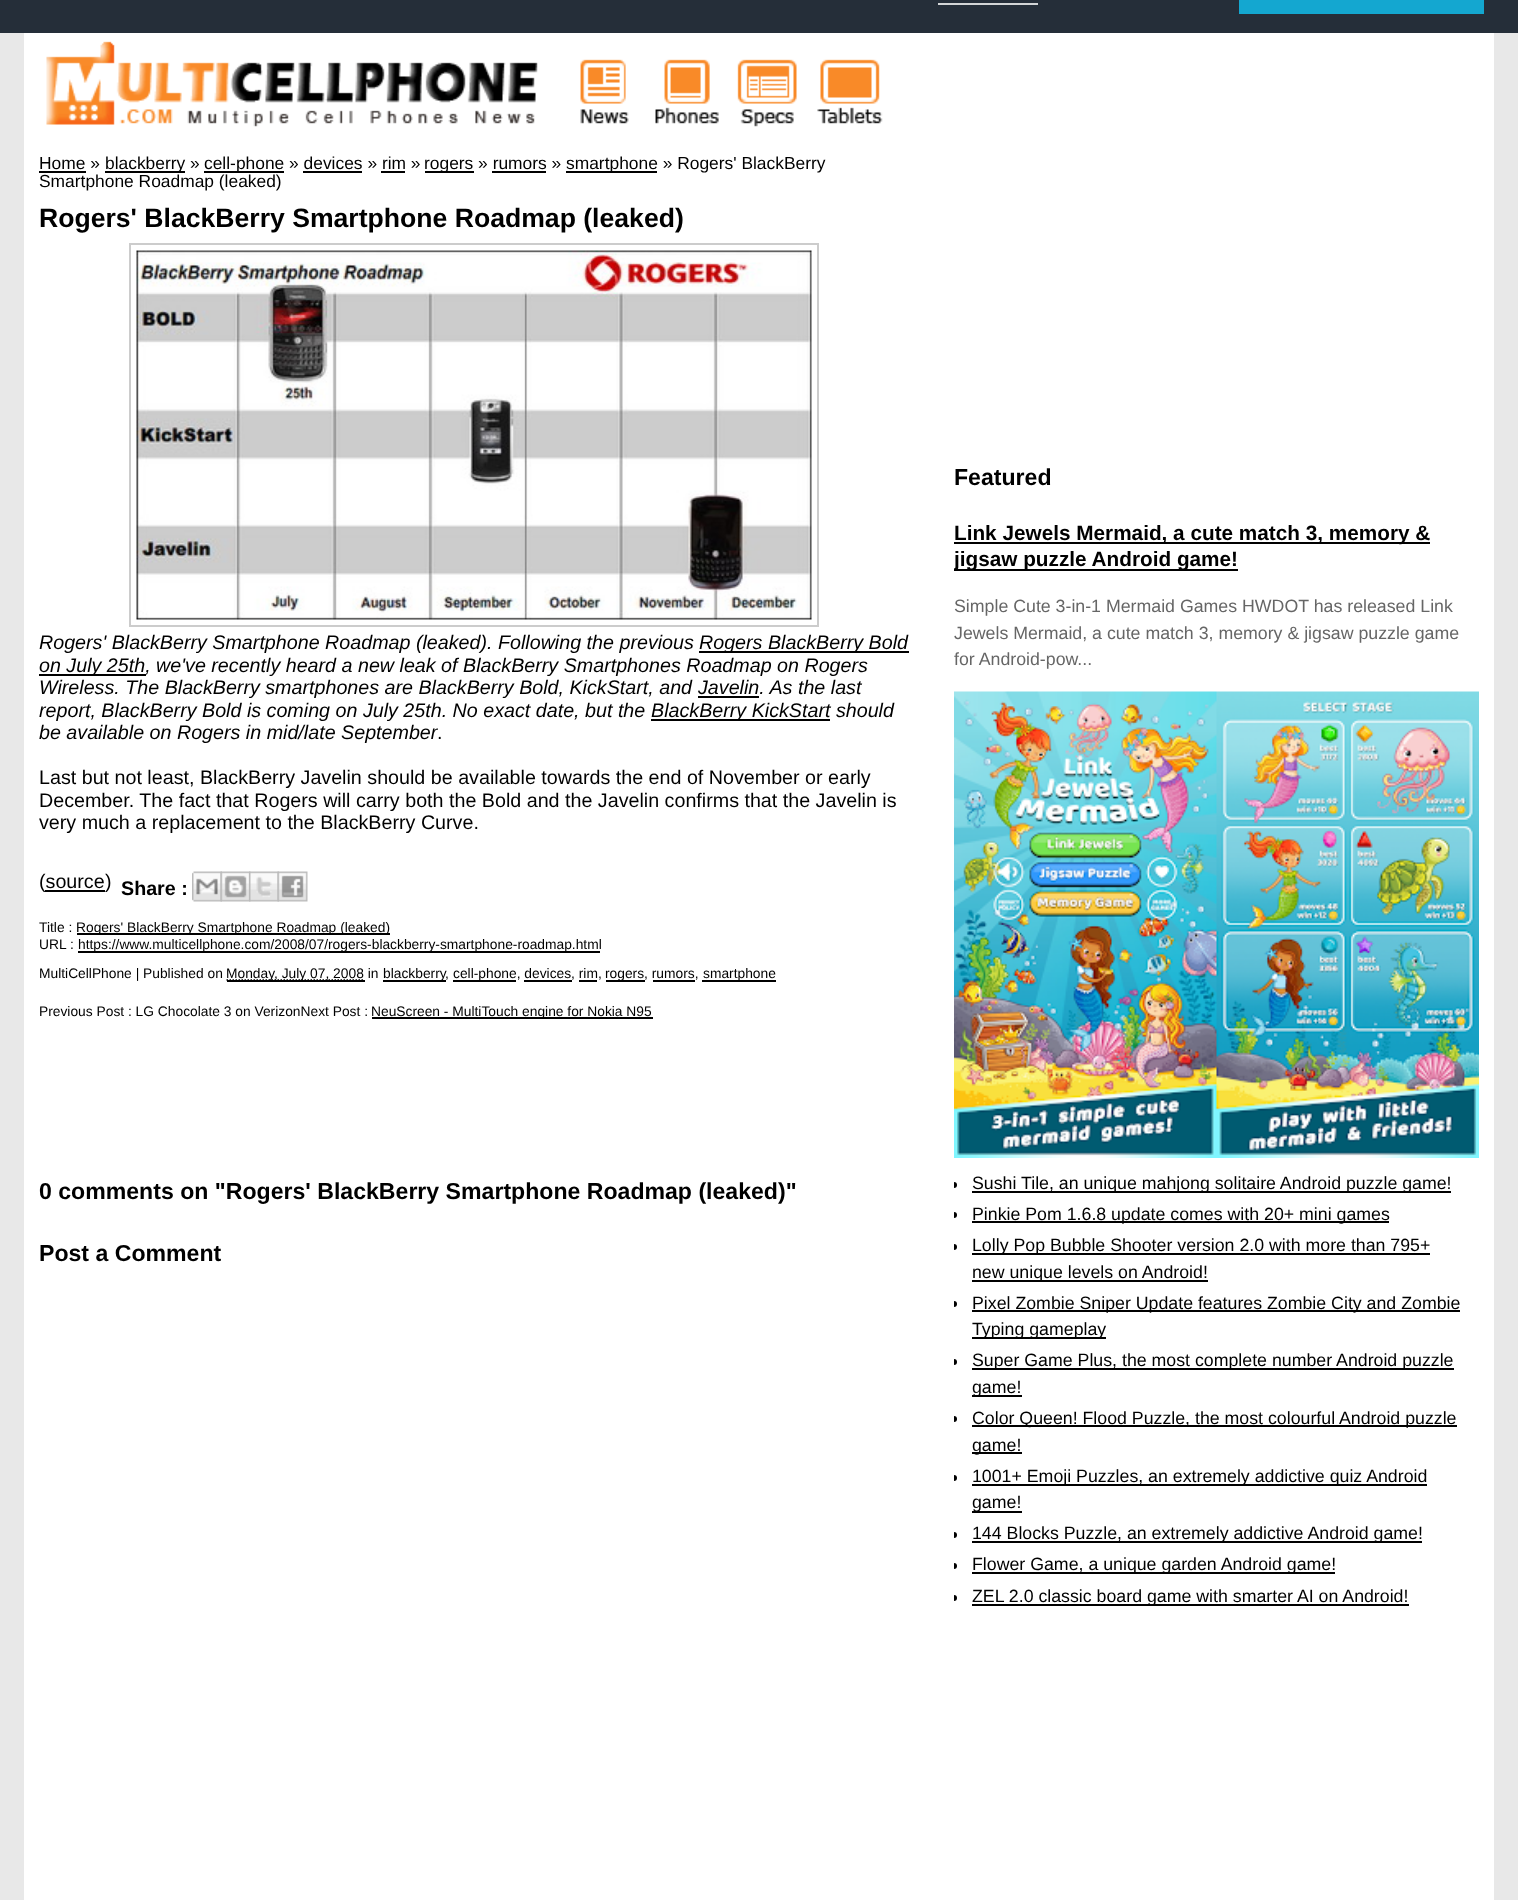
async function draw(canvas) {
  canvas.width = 1518;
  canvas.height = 1900;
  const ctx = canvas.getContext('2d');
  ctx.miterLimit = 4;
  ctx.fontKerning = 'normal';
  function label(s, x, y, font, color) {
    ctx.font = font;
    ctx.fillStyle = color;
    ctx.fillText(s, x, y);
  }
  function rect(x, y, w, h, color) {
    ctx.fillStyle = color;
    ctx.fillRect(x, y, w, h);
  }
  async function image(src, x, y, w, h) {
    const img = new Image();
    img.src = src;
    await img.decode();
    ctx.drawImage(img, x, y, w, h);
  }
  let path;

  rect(0, 0, 1518, 1900, '#e8e8e8');
  rect(0, 0, 1518, 33, '#252e39');
  rect(938, 3, 100, 2, '#d3d5d7');
  rect(1239, 0, 245, 14, '#14a7d0');
  rect(24, 33, 1470, 1867, '#fff');
  await image('assets/img1.png', 46, 41, 492, 86);
  await image('assets/img2.png', 580, 59, 49, 65);
  await image('assets/img3.png', 655, 59, 64, 65);
  await image('assets/img4.png', 737, 59, 60, 68);
  await image('assets/img5.png', 817, 59, 66, 65);
  label('Home »', 39, 169, '17.4px Liberation Sans', '#000');
  rect(39, 171, 47, 2, '#000');
  rect(105, 171, 80, 2, '#000');
  label('blackberry »', 105, 169, '17.4px Liberation Sans', '#000');
  rect(204, 171, 80, 2, '#000');
  label('cell-phone » devices » rim »', 204, 169, '17.4px Liberation Sans', '#000');
  rect(425, 171, 49, 2, '#000');
  label('rogers » rumors »', 424, 169, '17.4px Liberation Sans', '#000');
  rect(566, 171, 91, 2, '#000');
  label('smartphone » Rogers\' BlackBerry', 566, 169, '17.4px Liberation Sans', '#000');
  rect(303, 171, 59, 2, '#000');
  rect(381, 171, 24, 2, '#000');
  rect(492, 171, 54, 2, '#000');
  label('Smartphone Roadmap (leaked)', 39, 187, '17.4px Liberation Sans', '#000');
  label('Rogers\' BlackBerry Smartphone Roadmap (leaked)', 39, 227, 'bold 26.6px Liberation Sans', '#000');
  ctx.strokeStyle = '#ccc';
  ctx.lineWidth = 2;
  ctx.strokeRect(130, 244, 688, 382);
  await image('assets/img6.png', 136, 250, 676, 370);
  label('Rogers\' BlackBerry Smartphone Roadmap (leaked). Following the previous', 39, 649, 'italic 19.7px Liberation Sans', '#000');
  rect(699, 651, 210, 2, '#000');
  label('Rogers BlackBerry Bold', 699, 649, 'italic 19.7px Liberation Sans', '#000');
  rect(39, 674, 107, 2, '#000');
  label('on July 25th, we\'ve recently heard a new leak of BlackBerry Smartphones Roadmap on Rogers', 39, 672, 'italic 19.7px Liberation Sans', '#000');
  label('Wireless. The BlackBerry smartphones are BlackBerry Bold, KickStart, and', 39, 694, 'italic 19.7px Liberation Sans', '#000');
  label('Javelin. As the last', 698, 694, 'italic 19.7px Liberation Sans', '#000');
  rect(698, 696, 61, 2, '#000');
  label('report, BlackBerry Bold is coming on July 25th. No exact date, but the', 39, 717, 'italic 19.7px Liberation Sans', '#000');
  rect(651, 719, 179, 2, '#000');
  label('BlackBerry KickStart should', 651, 717, 'italic 19.7px Liberation Sans', '#000');
  label('be available on Rogers in mid/late September', 39, 739, 'italic 19.7px Liberation Sans', '#000');
  label('.', 437, 739, '19.7px Liberation Sans', '#000');
  label('Last but not least, BlackBerry Javelin should be available towards the end of November or early', 39, 784, '19.7px Liberation Sans', '#000');
  label('December. The fact that Rogers will carry both the Bold and the Javelin confirms that the Javelin is', 39, 807, '19.7px Liberation Sans', '#000');
  label('very much a replacement to the BlackBerry Curve.', 39, 829, '19.7px Liberation Sans', '#000');
  label('(source', 39, 888, '19.7px Liberation Sans', '#000');
  rect(45, 890, 60, 2, '#000');
  label(')', 105, 888, '19.7px Liberation Sans', '#000');
  label('Share :', 121, 895, 'bold 19.7px Liberation Sans', '#000');
  await image('assets/img7.png', 192, 871, 30, 31);
  await image('assets/img8.png', 220, 871, 31, 31);
  await image('assets/img9.png', 249, 871, 30, 31);
  await image('assets/img10.png', 277, 871, 31, 31);
  label('Title :', 39, 932, '13.8px Liberation Sans', '#000');
  rect(77, 933, 313, 2, '#000');
  label('Rogers\' BlackBerry Smartphone Roadmap (leaked)', 76, 932, '13.8px Liberation Sans', '#000');
  label('URL :', 39, 949, '13.8px Liberation Sans', '#000');
  rect(78, 951, 522, 2, '#000');
  label('https://www.multicellphone.com/2008/07/rogers-blackberry-smartphone-roadmap.html', 78, 949, '13.8px Liberation Sans', '#000');
  label('MultiCellPhone | Published on', 39, 978, '13.8px Liberation Sans', '#000');
  path = new Path2D('M226.5 980H364');
  ctx.strokeStyle = '#000';
  ctx.lineWidth = 1.5;
  ctx.setLineDash([1.5, 1.5]);
  ctx.stroke(path);
  rect(227, 980, 138, 2, '#000');
  label('Monday, July 07, 2008 in', 226, 978, '13.8px Liberation Sans', '#000');
  rect(383, 980, 63, 2, '#000');
  label('blackberry', 383, 978, '13.8px Liberation Sans', '#000');
  rect(453, 980, 63, 2, '#000');
  label('cell-phone, devices, rim,', 453, 978, '13.8px Liberation Sans', '#000');
  rect(524, 980, 48, 2, '#000');
  rect(579, 980, 18, 2, '#000');
  rect(606, 980, 39, 2, '#000');
  label('rogers, rumors,', 605, 978, '13.8px Liberation Sans', '#000');
  rect(653, 980, 42, 2, '#000');
  rect(702, 980, 74, 2, '#000');
  label('smartphone', 703, 978, '13.8px Liberation Sans', '#000');
  label(',', 445, 978, '13.8px Liberation Sans', '#000');
  label('Previous Post : LG Chocolate 3 on VerizonNext Post :', 39, 1016, '13.8px Liberation Sans', '#000');
  rect(372, 1017, 281, 2, '#000');
  label('NeuScreen - MultiTouch engine for Nokia N95', 371, 1016, '13.8px Liberation Sans', '#000');
  label('0 comments on "Rogers\' BlackBerry Smartphone Roadmap (leaked)"', 39, 1199, 'bold 23.1px Liberation Sans', '#000');
  label('Post a Comment', 39, 1261, 'bold 23.1px Liberation Sans', '#000');
  label('Featured', 954, 485, 'bold 23.1px Liberation Sans', '#000');
  rect(954, 542, 476, 2, '#000');
  label('Link Jewels Mermaid, a cute match 3, memory &', 954, 540, 'bold 20.75px Liberation Sans', '#000');
  rect(954, 569, 284, 2, '#000');
  ctx.save();
  ctx.beginPath();
  ctx.rect(954, 137, 525, 1500);
  ctx.clip();
  label('jigsaw puzzle Android game!', 954, 566, 'bold 20.75px Liberation Sans', '#000');
  ctx.restore();
  label('Simple Cute 3-in-1 Mermaid Games HWDOT has released Link', 954, 612, '17.75px Liberation Sans', '#666');
  label('Jewels Mermaid, a cute match 3, memory & jigsaw puzzle game', 954, 639, '17.75px Liberation Sans', '#666');
  label('for Android-pow...', 954, 665, '17.75px Liberation Sans', '#666');
  await image('assets/img11.png', 954, 691, 525, 467);
  ctx.fillStyle = '#000';
  ctx.beginPath();
  ctx.roundRect(954, 1182, 3, 6, [0, 3, 3, 0]);
  ctx.fill();
  rect(972, 1191, 479, 2, '#000');
  label('Sushi Tile, an unique mahjong solitaire Android puzzle game!', 972, 1189, '17.75px Liberation Sans', '#000');
  ctx.beginPath();
  ctx.roundRect(954, 1212, 3, 6, [0, 3, 3, 0]);
  ctx.fill();
  rect(972, 1221, 417, 2, '#000');
  label('Pinkie Pom 1.6.8 update comes with 20+ mini games', 972, 1220, '17.75px Liberation Sans', '#000');
  ctx.beginPath();
  ctx.roundRect(954, 1244, 3, 6, [0, 3, 3, 0]);
  ctx.fill();
  rect(972, 1253, 458, 2, '#000');
  label('Lolly Pop Bubble Shooter version 2.0 with more than 795+', 972, 1251, '17.75px Liberation Sans', '#000');
  rect(972, 1280, 236, 2, '#000');
  label('new unique levels on Android!', 972, 1278, '17.75px Liberation Sans', '#000');
  ctx.beginPath();
  ctx.roundRect(954, 1301, 3, 6, [0, 3, 3, 0]);
  ctx.fill();
  rect(972, 1310, 488, 2, '#000');
  label('Pixel Zombie Sniper Update features Zombie City and Zombie', 972, 1309, '17.75px Liberation Sans', '#000');
  rect(972, 1337, 134, 2, '#000');
  label('Typing gameplay', 972, 1335, '17.75px Liberation Sans', '#000');
  ctx.beginPath();
  ctx.roundRect(954, 1359, 3, 6, [0, 3, 3, 0]);
  ctx.fill();
  rect(972, 1368, 482, 2, '#000');
  label('Super Game Plus, the most complete number Android puzzle', 972, 1366, '17.75px Liberation Sans', '#000');
  rect(972, 1395, 50, 2, '#000');
  label('game!', 972, 1393, '17.75px Liberation Sans', '#000');
  ctx.beginPath();
  ctx.roundRect(954, 1416, 3, 6, [0, 3, 3, 0]);
  ctx.fill();
  rect(972, 1425, 485, 2, '#000');
  label('Color Queen! Flood Puzzle, the most colourful Android puzzle', 972, 1424, '17.75px Liberation Sans', '#000');
  rect(972, 1452, 50, 2, '#000');
  label('game!', 972, 1451, '17.75px Liberation Sans', '#000');
  ctx.beginPath();
  ctx.roundRect(954, 1475, 3, 6, [0, 3, 3, 0]);
  ctx.fill();
  rect(972, 1484, 455, 2, '#000');
  label('1001+ Emoji Puzzles, an extremely addictive quiz Android', 972, 1482, '17.75px Liberation Sans', '#000');
  rect(972, 1511, 50, 2, '#000');
  label('game!', 972, 1508, '17.75px Liberation Sans', '#000');
  ctx.beginPath();
  ctx.roundRect(954, 1532, 3, 6, [0, 3, 3, 0]);
  ctx.fill();
  rect(972, 1541, 450, 2, '#000');
  label('144 Blocks Puzzle, an extremely addictive Android game!', 972, 1539, '17.75px Liberation Sans', '#000');
  ctx.beginPath();
  ctx.roundRect(954, 1563, 3, 6, [0, 3, 3, 0]);
  ctx.fill();
  rect(972, 1572, 363, 2, '#000');
  label('Flower Game, a unique garden Android game!', 972, 1570, '17.75px Liberation Sans', '#000');
  ctx.beginPath();
  ctx.roundRect(954, 1595, 3, 6, [0, 3, 3, 0]);
  ctx.fill();
  rect(972, 1604, 437, 2, '#000');
  label('ZEL 2.0 classic board game with smarter AI on Android!', 972, 1602, '17.75px Liberation Sans', '#000');
}

draw(document.querySelector('canvas'));
